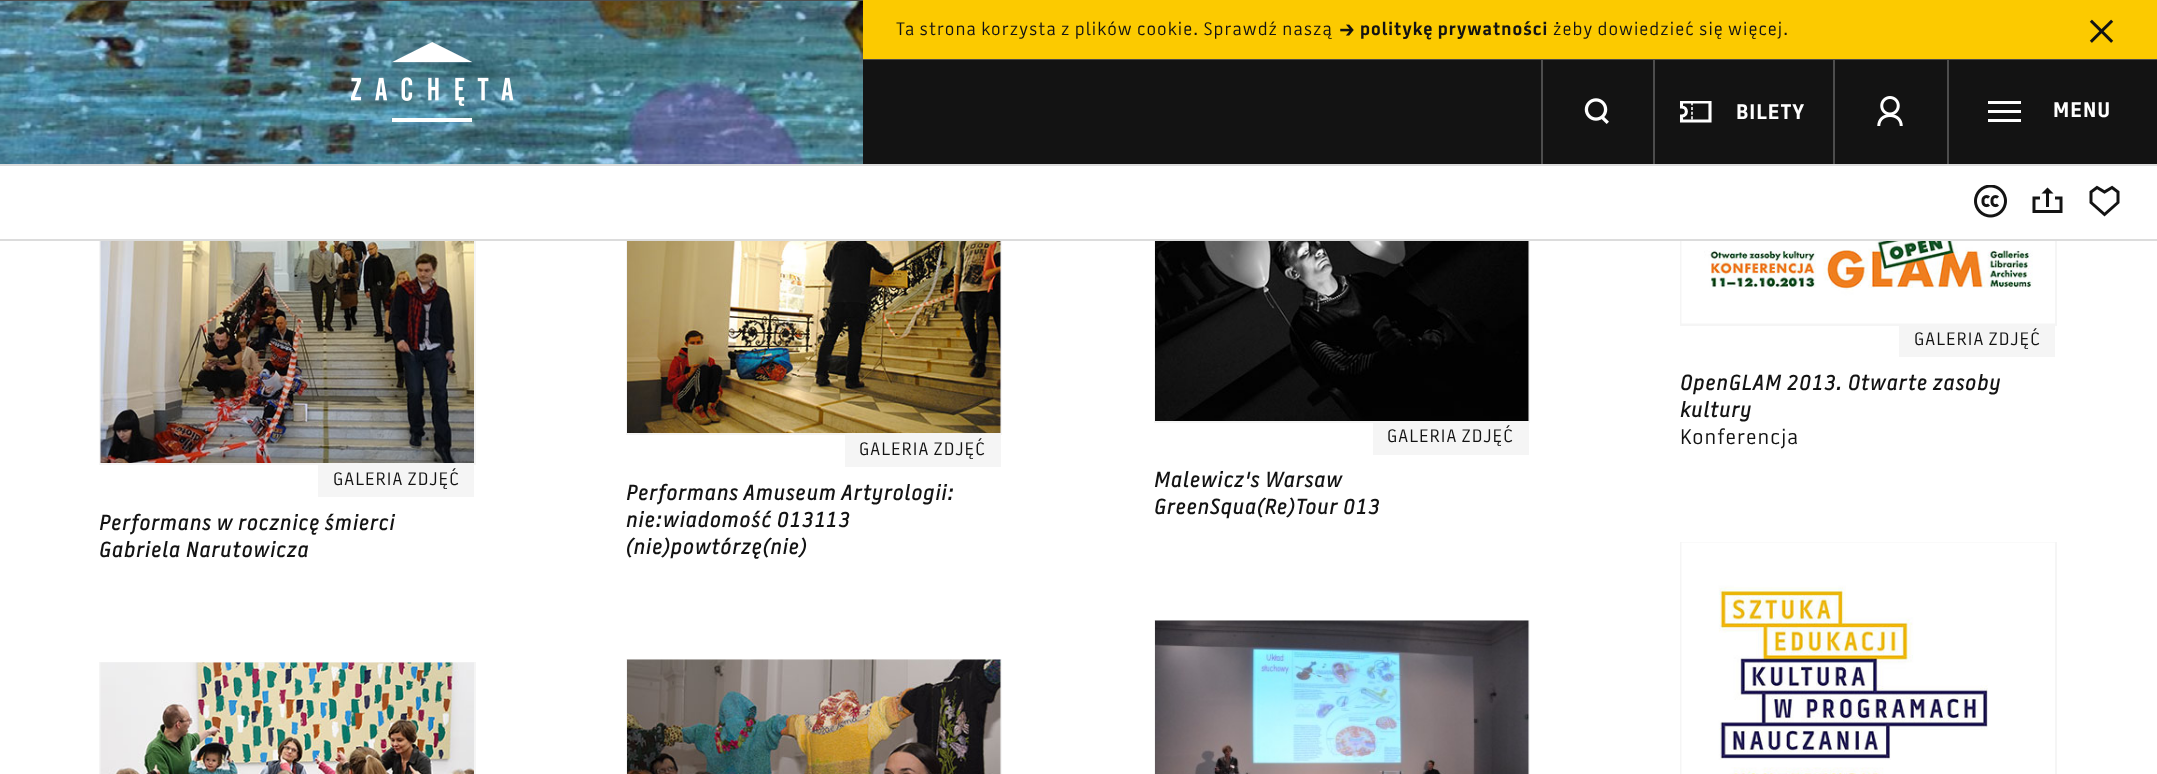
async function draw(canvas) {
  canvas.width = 2157;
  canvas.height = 774;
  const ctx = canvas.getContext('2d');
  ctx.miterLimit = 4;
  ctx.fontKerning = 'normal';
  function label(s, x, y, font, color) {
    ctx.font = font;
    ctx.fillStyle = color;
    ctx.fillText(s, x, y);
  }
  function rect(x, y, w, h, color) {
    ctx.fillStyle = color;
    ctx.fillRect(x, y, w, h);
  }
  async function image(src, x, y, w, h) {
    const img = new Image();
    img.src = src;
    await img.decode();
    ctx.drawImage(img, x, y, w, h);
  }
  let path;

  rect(0, 0, 2157, 774, '#fff');
  rect(0, 0, 863, 1, '#4d4d4d');
  rect(863, 0, 1294, 59, '#fcca00');
  rect(863, 59, 1294, 1, '#4d4d4d');
  ctx.letterSpacing = '1.05px';
  label('Ta strona korzysta z plików cookie. Sprawdź naszą', 896, 35, '18px "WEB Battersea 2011"', '#131313');
  await image('assets/img1.png', 1340, 24, 14, 12);
  label('politykę prywatności', 1360, 35, 'bold 18px "WEB Battersea 2011"', '#131313');
  label('żeby dowiedzieć się więcej.', 1553, 35, '18px "WEB Battersea 2011"', '#131313');
  await image('assets/img2.png', 2089, 19, 25, 24);
  await image('assets/img10.png', 861, 1, 2, 38);
  await image('assets/img6.png', 0, 1, 863, 163);
  await image('assets/img3.png', 351, 42, 163, 80);
  rect(863, 60, 1294, 104, '#131313');
  rect(1541, 60, 2, 105, '#4d4d4d');
  await image('assets/img4.png', 1584, 98, 25, 26);
  rect(1653, 60, 2, 105, '#4d4d4d');
  ctx.save();
  ctx.beginPath();
  ctx.rect(1680, 101, 32, 22);
  ctx.clip();
  path = new Path2D('M1710 102V121H1681.5V116C1688 116 1688 107 1681.5 107V102Z');
  ctx.strokeStyle = '#fff';
  ctx.lineWidth = 3.1;
  ctx.stroke(path);
  ctx.restore();
  path = new Path2D('M1692 103V121.5');
  ctx.strokeStyle = '#fff';
  ctx.lineWidth = 1.6;
  ctx.lineCap = 'square';
  ctx.setLineDash([1.57, 3.15]);
  ctx.stroke(path);
  ctx.letterSpacing = '1px';
  label('BILETY', 1736, 119, 'bold 21px "WEB Battersea 2011"', '#fff');
  rect(1833, 60, 2, 105, '#4d4d4d');
  await image('assets/img5.png', 1877, 96, 26, 30);
  rect(1947, 60, 2, 105, '#4d4d4d');
  rect(1988, 101, 33, 3, '#fff');
  rect(1988, 110, 33, 3, '#fff');
  rect(1988, 119, 33, 3, '#fff');
  ctx.letterSpacing = '1.05px';
  label('MENU', 2053, 117, 'bold 21px "WEB Battersea 2011"', '#fff');
  rect(863, 164, 1294, 2, '#dcdcdc');
  rect(0, 164, 863, 2, '#dcdcdc');
  await image('assets/img7.png', 1974, 185, 33, 33);
  await image('assets/img8.png', 2032, 187, 31, 26);
  await image('assets/img9.png', 2089, 185, 31, 32);
  rect(0, 239, 2157, 2, '#dcdcdc');
  rect(1680, 241, 377, 85, '#f5f5f5');
  await image('assets/img11.png', 1681, 241, 374, 83);
  rect(1899, 326, 156, 31, '#f5f5f5');
  label('GALERIA ZDJĘĆ', 1914, 345, '18px "WEB Battersea 2011"', '#131313');
  label('OpenGLAM 2013. Otwarte zasoby', 1680, 390, 'italic bold 21px "WEB Battersea 2011"', '#131313');
  label('kultury', 1680, 417, 'italic bold 21px "WEB Battersea 2011"', '#131313');
  label('Konferencja', 1680, 444, '21px "WEB Battersea 2011"', '#131313');
  rect(99, 241, 377, 224, '#f5f5f5');
  await image('assets/img12.png', 100, 241, 374, 222);
  rect(318, 465, 156, 32, '#f5f5f5');
  label('GALERIA ZDJĘĆ', 333, 485, '18px "WEB Battersea 2011"', '#131313');
  label('Performans w rocznicę śmierci', 99, 530, 'italic bold 21px "WEB Battersea 2011"', '#131313');
  label('Gabriela Narutowicza', 99, 557, 'italic bold 21px "WEB Battersea 2011"', '#131313');
  rect(626, 241, 376, 194, '#f5f5f5');
  await image('assets/img13.png', 627, 241, 374, 192);
  rect(845, 435, 156, 32, '#f5f5f5');
  label('GALERIA ZDJĘĆ', 859, 455, '18px "WEB Battersea 2011"', '#131313');
  label('Performans Amuseum Artyrologii:', 626, 500, 'italic bold 21px "WEB Battersea 2011"', '#131313');
  label('nie:wiadomość 013113', 626, 527, 'italic bold 21px "WEB Battersea 2011"', '#131313');
  label('(nie)powtórzę(nie)', 626, 554, 'italic bold 21px "WEB Battersea 2011"', '#131313');
  rect(1154, 241, 376, 182, '#f5f5f5');
  await image('assets/img14.png', 1155, 241, 374, 180);
  rect(1373, 423, 156, 32, '#f5f5f5');
  label('GALERIA ZDJĘĆ', 1387, 442, '18px "WEB Battersea 2011"', '#131313');
  label('Malewicz\'s Warsaw', 1154, 487, 'italic bold 21px "WEB Battersea 2011"', '#131313');
  label('GreenSqua(Re)Tour 013', 1154, 514, 'italic bold 21px "WEB Battersea 2011"', '#131313');
  rect(99, 662, 377, 112, '#f5f5f5');
  await image('assets/img15.png', 100, 662, 374, 112);
  rect(626, 659, 376, 115, '#f5f5f5');
  await image('assets/img16.png', 627, 659, 374, 115);
  rect(1154, 620, 376, 154, '#f5f5f5');
  await image('assets/img17.png', 1155, 620, 374, 154);
  rect(1680, 542, 377, 232, '#f5f5f5');
  await image('assets/img18.png', 1681, 542, 374, 232);
}

draw(document.querySelector('canvas'));
